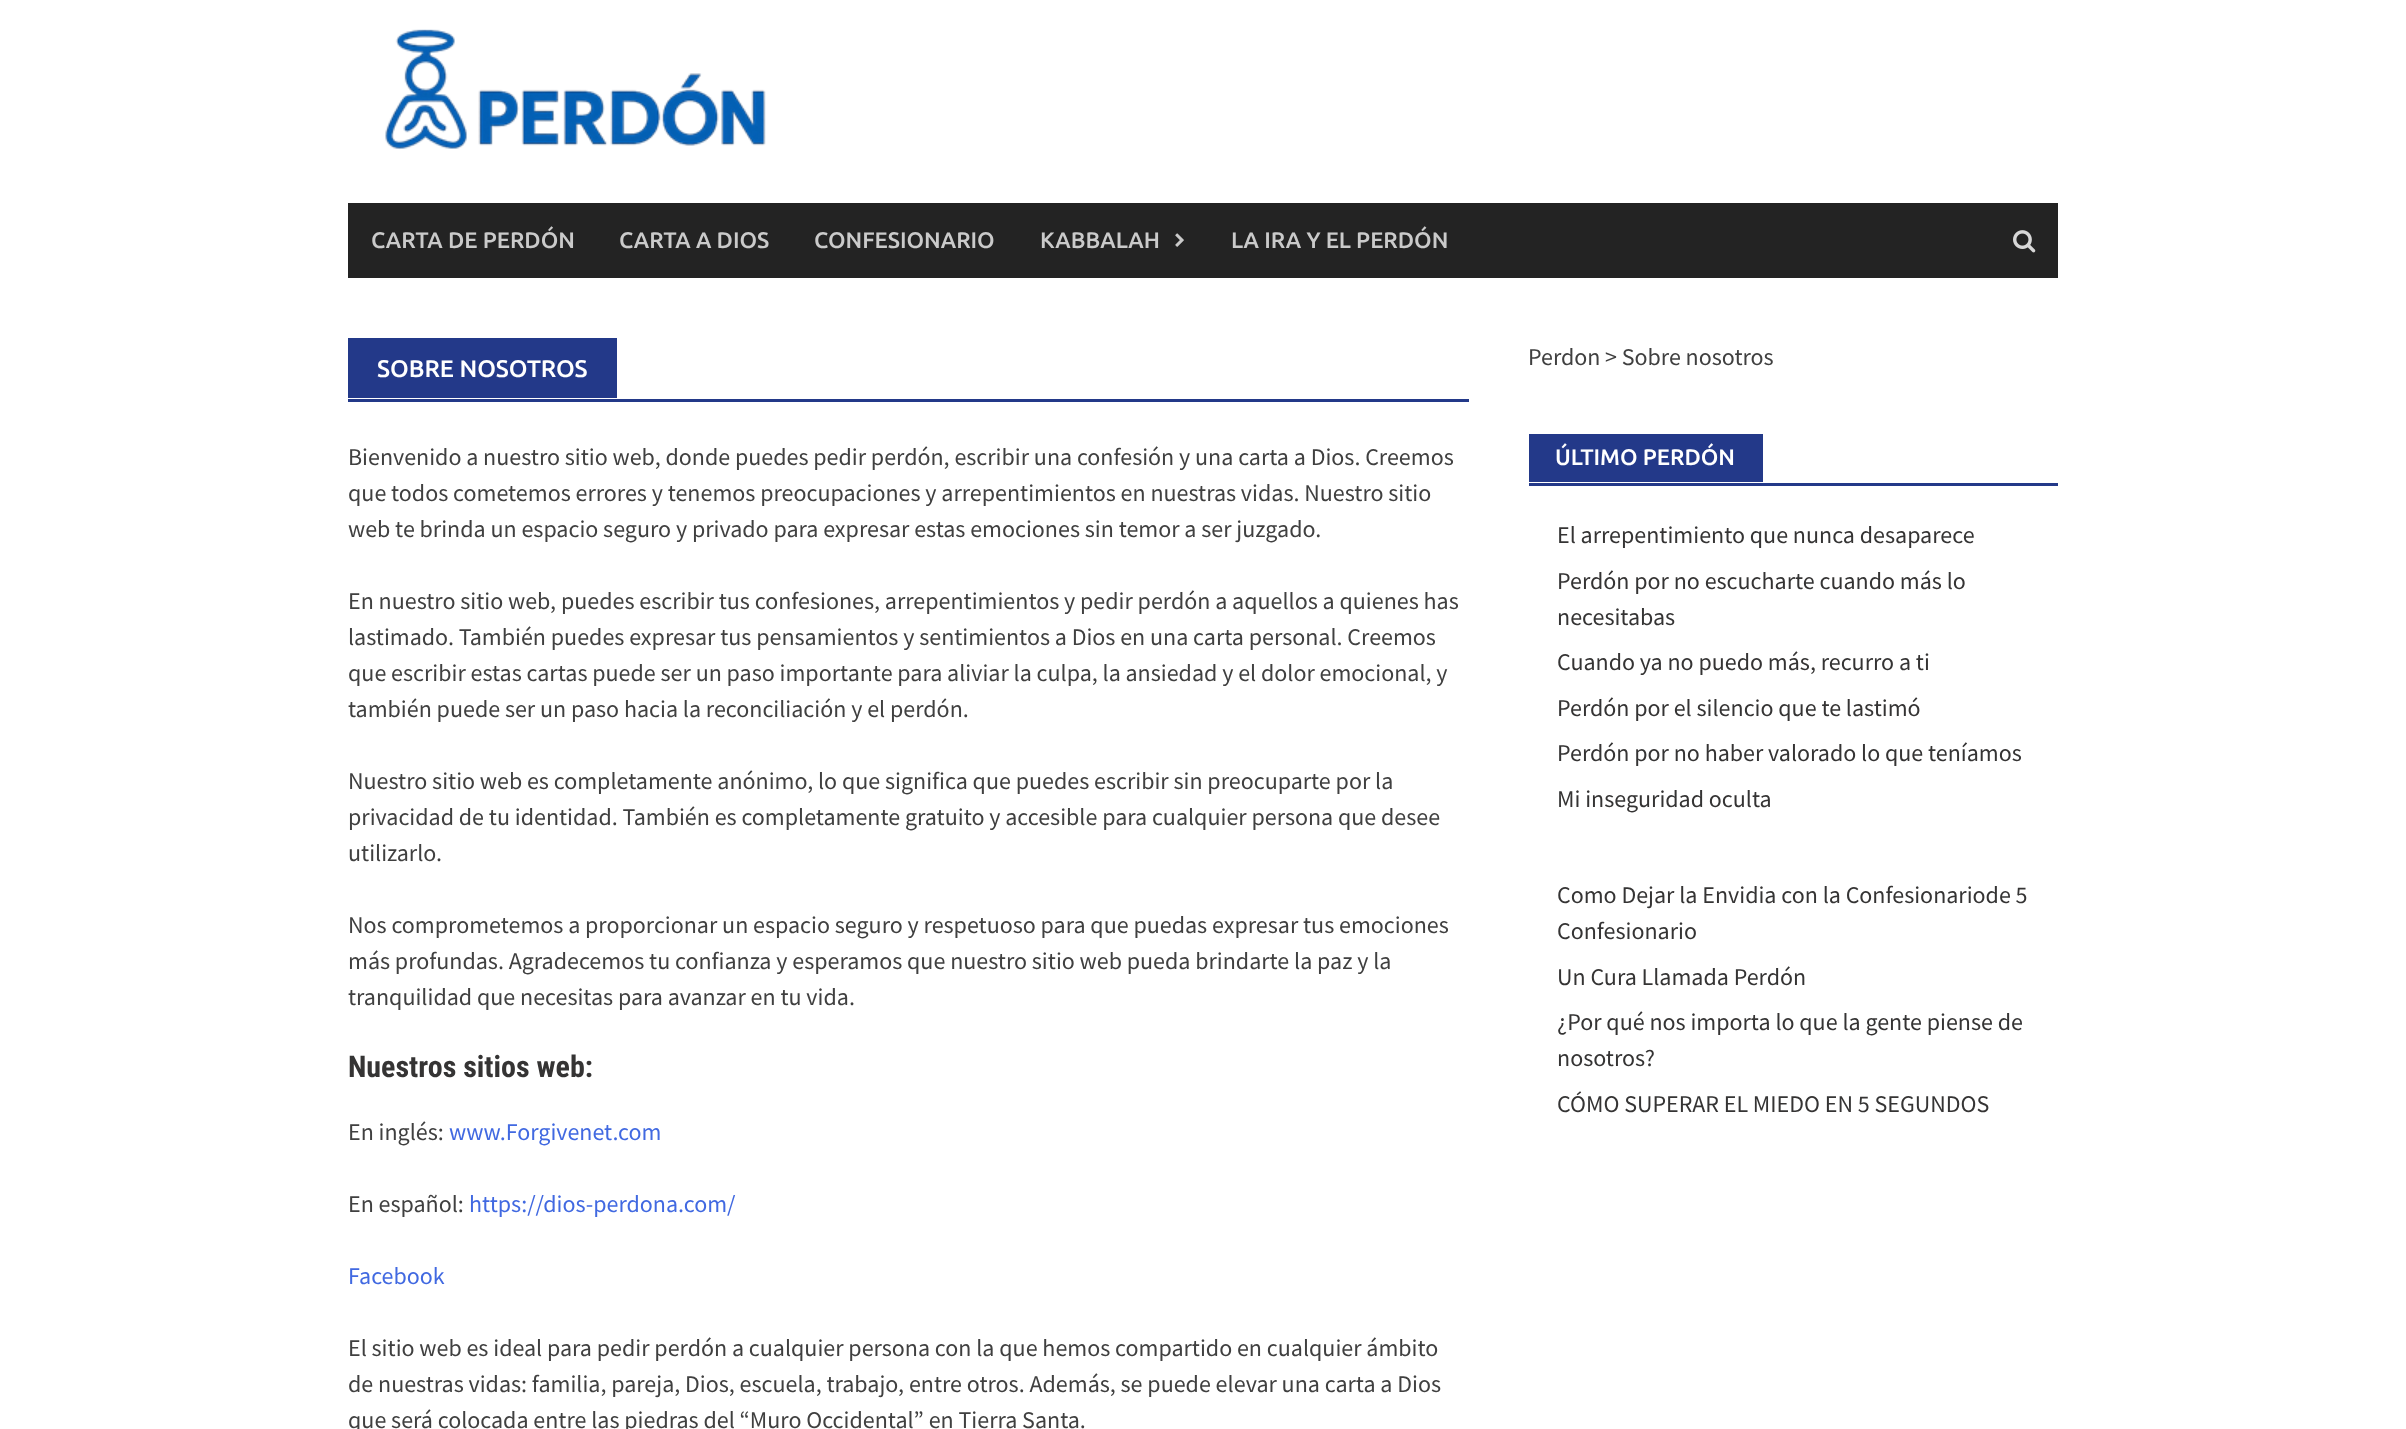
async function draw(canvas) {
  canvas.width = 2406;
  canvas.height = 1429;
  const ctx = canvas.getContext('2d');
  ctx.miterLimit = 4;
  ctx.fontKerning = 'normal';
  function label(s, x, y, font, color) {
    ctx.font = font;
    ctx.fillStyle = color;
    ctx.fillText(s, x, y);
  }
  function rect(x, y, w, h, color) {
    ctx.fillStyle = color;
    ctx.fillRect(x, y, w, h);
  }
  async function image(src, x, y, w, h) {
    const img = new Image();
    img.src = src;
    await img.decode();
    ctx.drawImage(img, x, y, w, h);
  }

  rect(0, 0, 2406, 1429, '#fff');
  await image('assets/img1.png', 385, 29, 381, 121);
  rect(348, 203, 1710, 75, '#232323');
  label('CARTA DE PERDÓN', 371, 248, '500 22.5px Ubuntu', '#cacaca');
  label('CARTA A DIOS', 619, 248, '500 22.5px Ubuntu', '#cacaca');
  label('CONFESIONARIO', 814, 248, '500 22.5px Ubuntu', '#cacaca');
  label('KABBALAH', 1040, 248, '500 22.5px Ubuntu', '#cacaca');
  await image('assets/img2.png', 1175, 233, 9, 14);
  label('LA IRA Y EL PERDÓN', 1231, 248, '500 22.5px Ubuntu', '#cacaca');
  await image('assets/img3.png', 2013, 230, 23, 23);
  rect(348, 399, 1121, 3, '#233989');
  rect(348, 338, 269, 60, '#233989');
  label('SOBRE NOSOTROS', 377, 377, '500 24px Ubuntu', '#fff');
  label('Bienvenido a nuestro sitio web, donde puedes pedir perdón, escribir una confesión y una carta a Dios. Creemos', 348, 465, '24px Source Sans Pro', '#404040');
  label('que todos cometemos errores y tenemos preocupaciones y arrepentimientos en nuestras vidas. Nuestro sitio', 348, 501, '24px Source Sans Pro', '#404040');
  label('web te brinda un espacio seguro y privado para expresar estas emociones sin temor a ser juzgado.', 348, 537, '24px Source Sans Pro', '#404040');
  label('En nuestro sitio web, puedes escribir tus confesiones, arrepentimientos y pedir perdón a aquellos a quienes has', 348, 609, '24px Source Sans Pro', '#404040');
  label('lastimado. También puedes expresar tus pensamientos y sentimientos a Dios en una carta personal. Creemos', 348, 645, '24px Source Sans Pro', '#404040');
  label('que escribir estas cartas puede ser un paso importante para aliviar la culpa, la ansiedad y el dolor emocional, y', 348, 681, '24px Source Sans Pro', '#404040');
  label('también puede ser un paso hacia la reconciliación y el perdón.', 348, 717, '24px Source Sans Pro', '#404040');
  label('Nuestro sitio web es completamente anónimo, lo que significa que puedes escribir sin preocuparte por la', 348, 789, '24px Source Sans Pro', '#404040');
  label('privacidad de tu identidad. También es completamente gratuito y accesible para cualquier persona que desee', 348, 825, '24px Source Sans Pro', '#404040');
  label('utilizarlo.', 348, 861, '24px Source Sans Pro', '#404040');
  label('Nos comprometemos a proporcionar un espacio seguro y respetuoso para que puedas expresar tus emociones', 348, 933, '24px Source Sans Pro', '#404040');
  label('más profundas. Agradecemos tu confianza y esperamos que nuestro sitio web pueda brindarte la paz y la', 348, 969, '24px Source Sans Pro', '#404040');
  label('tranquilidad que necesitas para avanzar en tu vida.', 348, 1005, '24px Source Sans Pro', '#404040');
  label('Nuestros sitios web:', 348, 1077, 'bold 30px Roboto Condensed', '#353434');
  label('En inglés:', 348, 1140, '24px Source Sans Pro', '#404040');
  label('www.Forgivenet.com', 449, 1140, '24px Source Sans Pro', '#4169e1');
  label('En español:', 348, 1212, '24px Source Sans Pro', '#404040');
  label('https://dios-perdona.com/', 469, 1212, '24px Source Sans Pro', '#4169e1');
  label('Facebook', 348, 1284, '24px Source Sans Pro', '#4169e1');
  label('El sitio web es ideal para pedir perdón a cualquier persona con la que hemos compartido en cualquier ámbito', 348, 1356, '24px Source Sans Pro', '#404040');
  label('de nuestras vidas: familia, pareja, Dios, escuela, trabajo, entre otros. Además, se puede elevar una carta a Dios', 348, 1392, '24px Source Sans Pro', '#404040');
  label('que será colocada entre las piedras del “Muro Occidental” en Tierra Santa.', 348, 1428, '24px Source Sans Pro', '#404040');
  label('Perdon', 1528, 365, '24px Source Sans Pro', '#404040');
  label('> Sobre nosotros', 1605, 365, '24px Source Sans Pro', '#404040');
  rect(1529, 483, 529, 3, '#233989');
  rect(1529, 434, 234, 48, '#233989');
  label('ÚLTIMO PERDÓN', 1555, 465, '500 22.5px Ubuntu', '#fff');
  label('El arrepentimiento que nunca desaparece', 1557, 543, '24px Source Sans Pro', '#353434');
  label('Perdón por no escucharte cuando más lo', 1557, 589, '24px Source Sans Pro', '#353434');
  label('necesitabas', 1557, 625, '24px Source Sans Pro', '#353434');
  label('Cuando ya no puedo más, recurro a ti', 1557, 670, '24px Source Sans Pro', '#353434');
  label('Perdón por el silencio que te lastimó', 1557, 716, '24px Source Sans Pro', '#353434');
  label('Perdón por no haber valorado lo que teníamos', 1557, 761, '24px Source Sans Pro', '#353434');
  label('Mi inseguridad oculta', 1557, 807, '24px Source Sans Pro', '#353434');
  label('Como Dejar la Envidia con la Confesionariode 5', 1557, 903, '24px Source Sans Pro', '#353434');
  label('Confesionario', 1557, 939, '24px Source Sans Pro', '#353434');
  label('Un Cura Llamada Perdón', 1557, 985, '24px Source Sans Pro', '#353434');
  label('¿Por qué nos importa lo que la gente piense de', 1557, 1030, '24px Source Sans Pro', '#353434');
  label('nosotros?', 1557, 1066, '24px Source Sans Pro', '#353434');
  label('CÓMO SUPERAR EL MIEDO EN 5 SEGUNDOS', 1557, 1112, '24px Source Sans Pro', '#353434');
}

draw(document.querySelector('canvas'));
